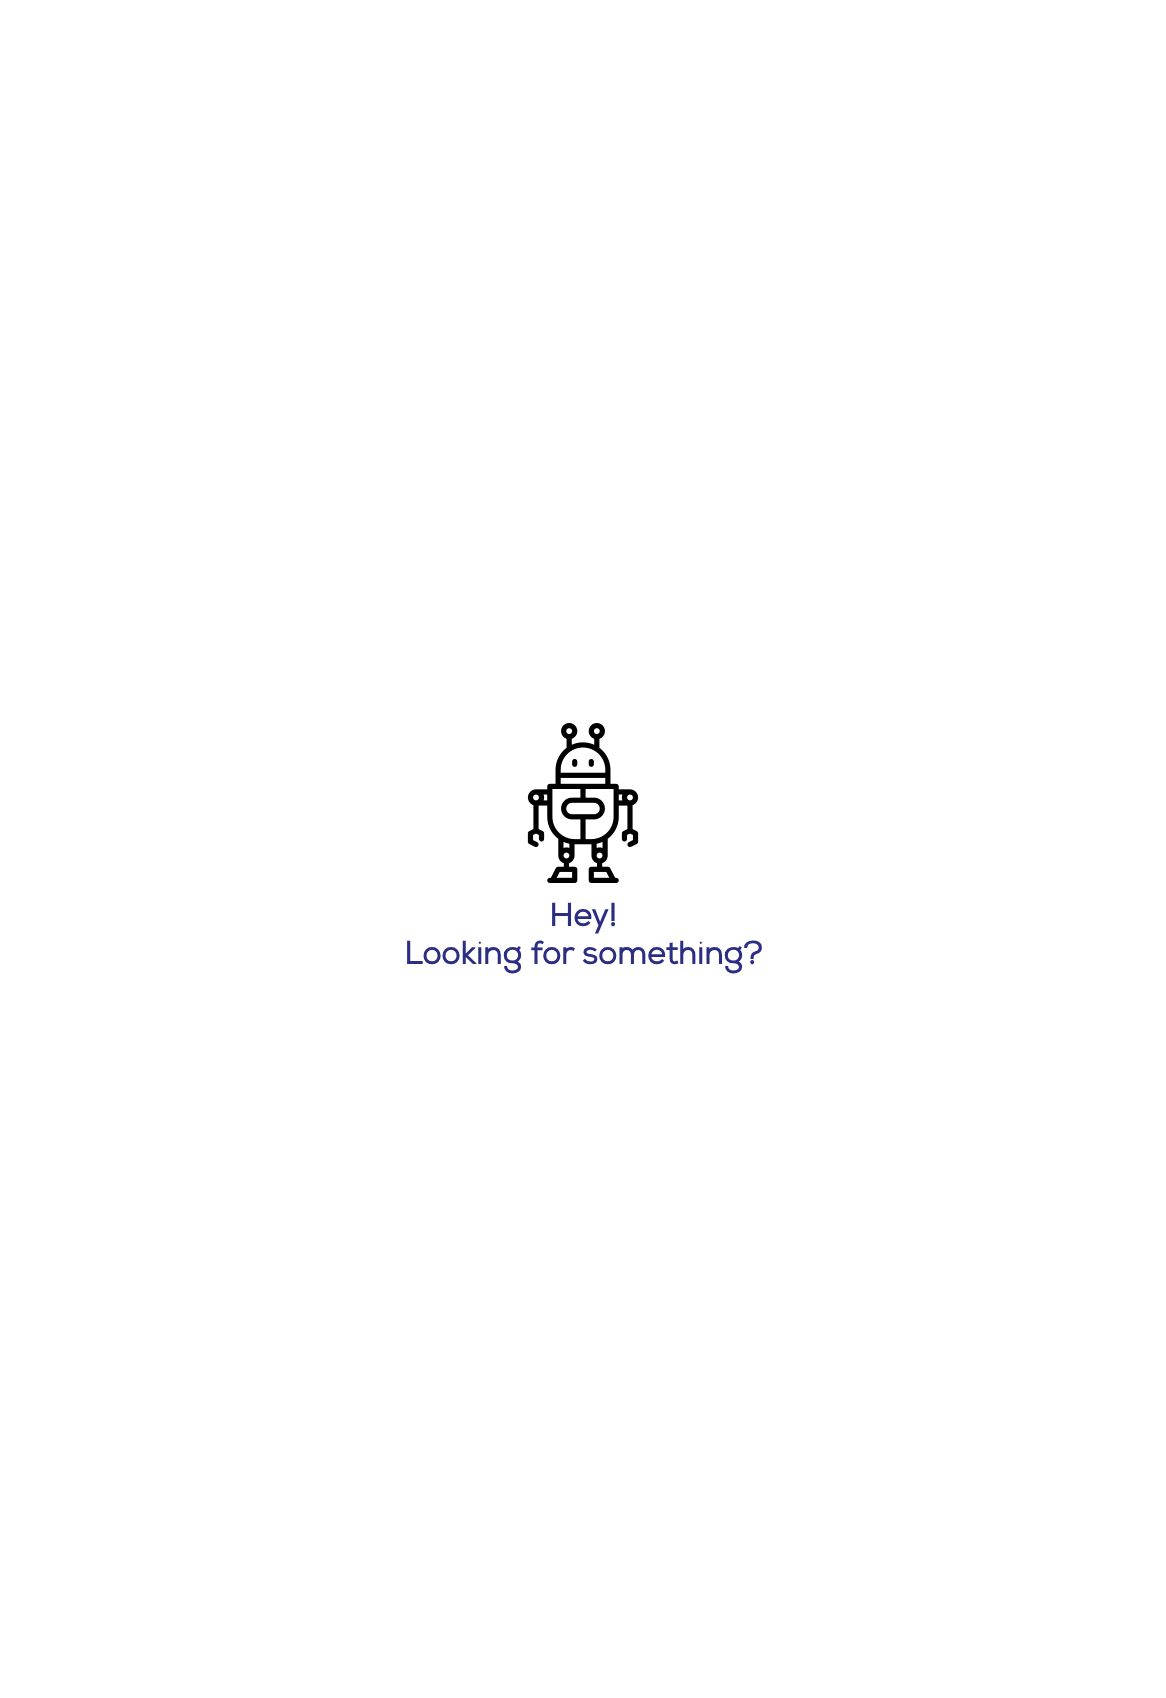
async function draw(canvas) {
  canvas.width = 1166;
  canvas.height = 1698;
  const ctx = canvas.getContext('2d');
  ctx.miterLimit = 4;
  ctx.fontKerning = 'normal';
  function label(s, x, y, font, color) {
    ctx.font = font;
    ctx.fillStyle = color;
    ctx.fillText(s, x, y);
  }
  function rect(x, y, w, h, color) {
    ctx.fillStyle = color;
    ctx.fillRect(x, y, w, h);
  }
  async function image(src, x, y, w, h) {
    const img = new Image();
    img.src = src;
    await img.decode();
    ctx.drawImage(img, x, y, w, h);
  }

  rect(0, 0, 1166, 1698, '#fff');
  await image('assets/img1.png', 527, 723, 112, 160);
  label('Hey!', 549, 926, 'bold 32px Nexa', '#2c2e83');
  label('Looking for something?', 404, 964, 'bold 32px Nexa', '#2c2e83');
}

draw(document.querySelector('canvas'));
